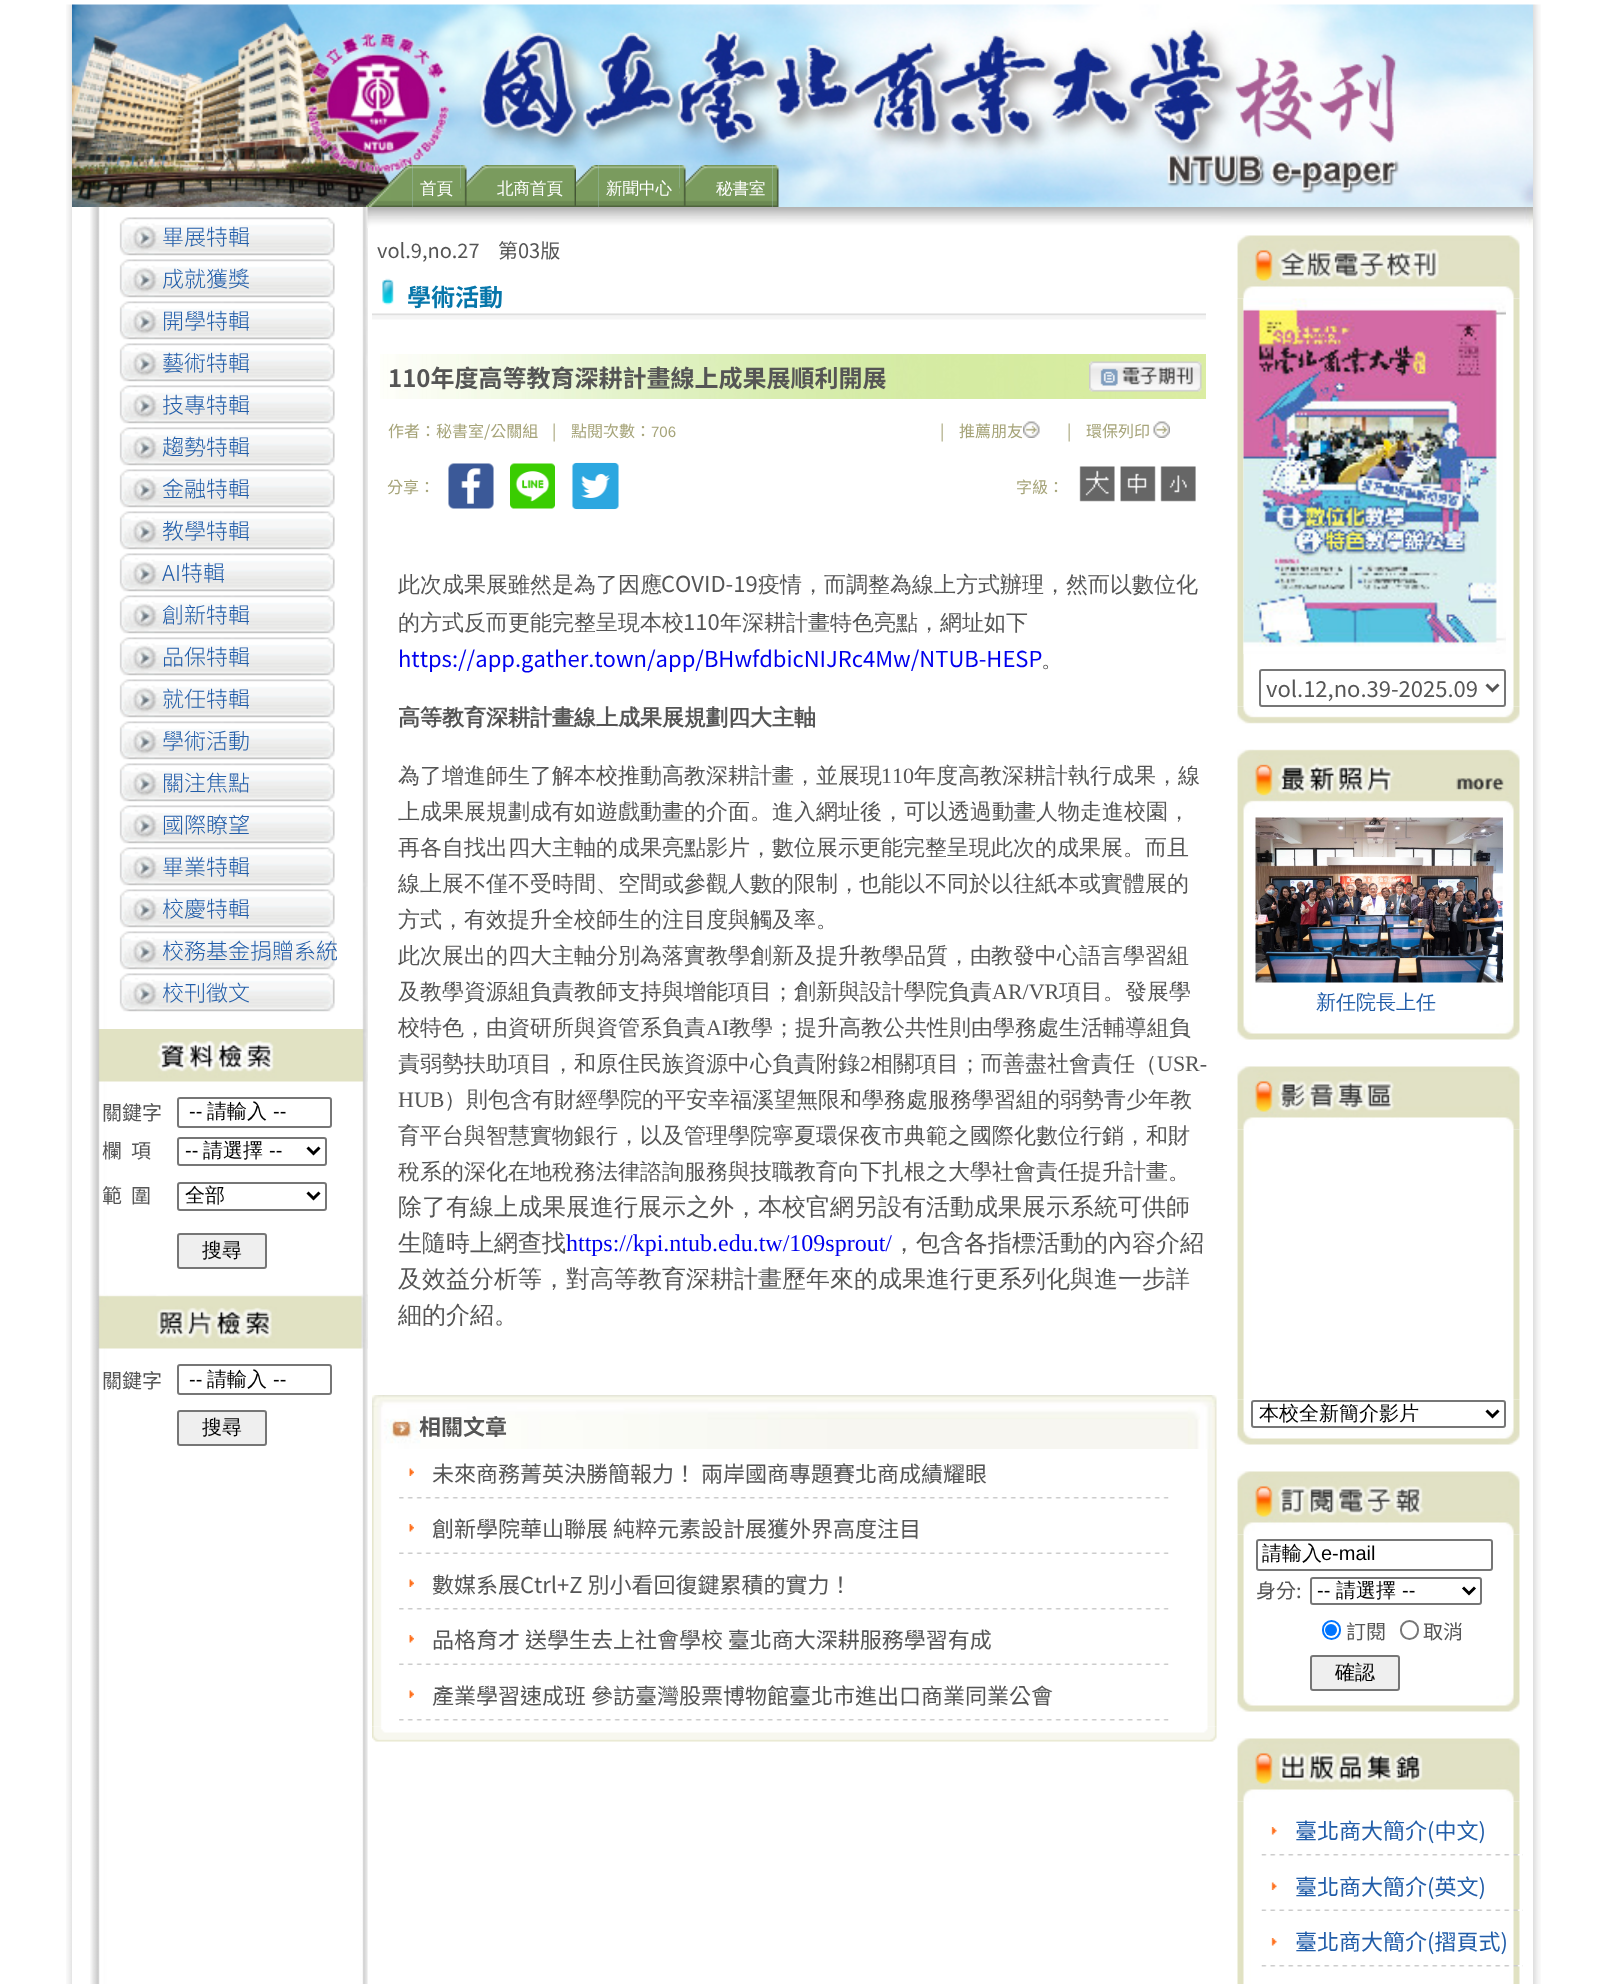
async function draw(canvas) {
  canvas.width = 1605;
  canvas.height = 1984;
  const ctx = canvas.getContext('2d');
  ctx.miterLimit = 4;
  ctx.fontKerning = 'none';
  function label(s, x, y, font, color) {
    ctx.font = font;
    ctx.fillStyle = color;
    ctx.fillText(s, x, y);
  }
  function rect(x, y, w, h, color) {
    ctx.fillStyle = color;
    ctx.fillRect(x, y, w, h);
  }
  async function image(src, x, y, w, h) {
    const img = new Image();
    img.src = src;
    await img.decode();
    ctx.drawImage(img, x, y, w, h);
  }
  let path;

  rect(0, 0, 1605, 1984, '#fff');
  await image('assets/img1.png', 66, 4, 6, 1980);
  await image('assets/img2.png', 72, 4, 1461, 203);
  await image('assets/img3.png', 366, 165, 47, 42);
  await image('assets/img6.png', 460, 165, 29, 42);
  await image('assets/img4.png', 460, 165, 7, 41);
  await image('assets/img5.png', 412, 165, 49, 42);
  label('首頁', 420, 194, '500 16.5px WenQuanYi Zen Hei', '#fff');
  await image('assets/img9.png', 570, 165, 29, 42);
  await image('assets/img7.png', 570, 165, 6, 41);
  await image('assets/img8.png', 489, 165, 81, 42);
  label('北商首頁', 497, 194, '500 16.5px WenQuanYi Zen Hei', '#fff');
  await image('assets/img12.png', 679, 165, 29, 42);
  await image('assets/img10.png', 679, 165, 7, 41);
  await image('assets/img11.png', 598, 165, 82, 42);
  label('新聞中心', 606, 194, '500 16.5px WenQuanYi Zen Hei', '#fff');
  await image('assets/img13.png', 772, 165, 7, 42);
  await image('assets/img14.png', 708, 165, 65, 42);
  label('秘書室', 716, 194, '500 16.5px WenQuanYi Zen Hei', '#fff');
  await image('assets/img15.png', 90, 207, 278, 1777);
  await image('assets/img16.png', 363, 207, 5, 822);
  await image('assets/img17.png', 119, 217, 216, 39);
  label('畢展特輯', 162, 245, '300 22px Noto Sans TC', '#215da9');
  await image('assets/img17.png', 119, 259, 216, 39);
  label('成就獲獎', 162, 287, '300 22px Noto Sans TC', '#215da9');
  await image('assets/img17.png', 119, 301, 216, 39);
  label('開學特輯', 162, 329, '300 22px Noto Sans TC', '#215da9');
  await image('assets/img17.png', 119, 343, 216, 39);
  label('藝術特輯', 162, 371, '300 22px Noto Sans TC', '#215da9');
  await image('assets/img17.png', 119, 385, 216, 39);
  label('技專特輯', 162, 413, '300 22px Noto Sans TC', '#215da9');
  await image('assets/img17.png', 119, 427, 216, 39);
  label('趨勢特輯', 162, 455, '300 22px Noto Sans TC', '#215da9');
  await image('assets/img17.png', 119, 469, 216, 39);
  label('金融特輯', 162, 497, '300 22px Noto Sans TC', '#215da9');
  await image('assets/img17.png', 119, 511, 216, 39);
  label('教學特輯', 162, 539, '300 22px Noto Sans TC', '#215da9');
  await image('assets/img17.png', 119, 553, 216, 39);
  label('AI特輯', 162, 581, '300 22px Noto Sans TC', '#215da9');
  await image('assets/img17.png', 119, 595, 216, 39);
  label('創新特輯', 162, 623, '300 22px Noto Sans TC', '#215da9');
  await image('assets/img17.png', 119, 637, 216, 39);
  label('品保特輯', 162, 665, '300 22px Noto Sans TC', '#215da9');
  await image('assets/img17.png', 119, 679, 216, 39);
  label('就任特輯', 162, 707, '300 22px Noto Sans TC', '#215da9');
  await image('assets/img17.png', 119, 721, 216, 39);
  label('學術活動', 162, 749, '300 22px Noto Sans TC', '#215da9');
  await image('assets/img17.png', 119, 763, 216, 39);
  label('關注焦點', 162, 791, '300 22px Noto Sans TC', '#215da9');
  await image('assets/img17.png', 119, 805, 216, 39);
  label('國際瞭望', 162, 833, '300 22px Noto Sans TC', '#215da9');
  await image('assets/img17.png', 119, 847, 216, 39);
  label('畢業特輯', 162, 875, '300 22px Noto Sans TC', '#215da9');
  await image('assets/img17.png', 119, 889, 216, 39);
  label('校慶特輯', 162, 917, '300 22px Noto Sans TC', '#215da9');
  await image('assets/img17.png', 119, 931, 216, 39);
  label('校務基金捐贈系統', 162, 959, '300 22px Noto Sans TC', '#215da9');
  await image('assets/img17.png', 119, 973, 216, 39);
  label('校刊徵文', 162, 1001, '300 22px Noto Sans TC', '#215da9');
  await image('assets/img18.png', 98, 1029, 270, 53);
  label('關鍵字', 102, 1120, '100 20px Noto Sans TC', '#555');
  ctx.beginPath();
  ctx.roundRect(178, 1098, 153, 29, 2);
  ctx.strokeStyle = '#767676';
  ctx.lineWidth = 2;
  ctx.stroke();
  label('--', 189, 1118, '20px Liberation Sans', '#000');
  label('請輸入', 207, 1118, '500 20px WenQuanYi Zen Hei', '#000');
  label('--', 273, 1118, '20px Liberation Sans', '#000');
  label('欄  項', 102, 1158, '100 20px Noto Sans TC', '#555');
  ctx.beginPath();
  ctx.roundRect(178, 1138, 148, 27, 2);
  ctx.stroke();
  path = new Path2D('M307.5 1147.5L313.5 1153.5L319.5 1147.5');
  ctx.strokeStyle = '#000';
  ctx.lineWidth = 3;
  ctx.stroke(path);
  label('--', 185, 1157, '20px Liberation Sans', '#000');
  label('請選擇', 203, 1157, '500 20px WenQuanYi Zen Hei', '#000');
  label('--', 269, 1157, '20px Liberation Sans', '#000');
  label('範  圍', 102, 1203, '100 20px Noto Sans TC', '#555');
  ctx.beginPath();
  ctx.roundRect(178, 1183, 148, 27, 2);
  ctx.strokeStyle = '#767676';
  ctx.lineWidth = 2;
  ctx.stroke();
  path = new Path2D('M307.5 1192.5L313.5 1198.5L319.5 1192.5');
  ctx.strokeStyle = '#000';
  ctx.lineWidth = 3;
  ctx.stroke(path);
  label('全部', 185, 1202, '500 20px WenQuanYi Zen Hei', '#000');
  ctx.fillStyle = '#efefef';
  ctx.beginPath();
  ctx.roundRect(178, 1234, 88, 34, 2);
  ctx.fill();
  ctx.strokeStyle = '#767676';
  ctx.lineWidth = 2;
  ctx.stroke();
  label('搜尋', 202, 1257, '500 20px WenQuanYi Zen Hei', '#000');
  await image('assets/img19.png', 98, 1294, 270, 55);
  label('關鍵字', 102, 1388, '100 20px Noto Sans TC', '#555');
  ctx.beginPath();
  ctx.roundRect(178, 1365, 153, 29, 2);
  ctx.stroke();
  label('--', 189, 1386, '20px Liberation Sans', '#000');
  label('請輸入', 207, 1386, '500 20px WenQuanYi Zen Hei', '#000');
  label('--', 273, 1386, '20px Liberation Sans', '#000');
  ctx.fillStyle = '#efefef';
  ctx.beginPath();
  ctx.roundRect(178, 1411, 88, 34, 2);
  ctx.fill();
  ctx.stroke();
  label('搜尋', 202, 1434, '500 20px WenQuanYi Zen Hei', '#000');
  await image('assets/img20.png', 367, 207, 854, 9);
  await image('assets/img21.png', 367, 216, 854, 12);
  label('vol.9,no.27', 377, 258, '100 20px Noto Sans TC', '#555');
  label('第03版', 498, 258, '100 20px Noto Sans TC', '#555');
  await image('assets/img22.png', 372, 278, 834, 42);
  label('學術活動', 407, 306, 'bold 24px Noto Sans TC', '#0676aa');
  await image('assets/img23.png', 380, 354, 826, 45);
  label('110年度高等教育深耕計畫線上成果展順利開展', 388, 387, 'bold 24px Noto Sans TC', '#555');
  await image('assets/img24.png', 1089, 361, 113, 31);
  label('作者：秘書室/公關組', 388, 437, '100 16px Noto Sans TC', '#a6a479');
  label('|', 552, 437, '100 16px Noto Sans TC', '#a6a479');
  label('點閱次數：', 571, 437, '100 16px Noto Sans TC', '#a6a479');
  label('706', 651, 437, '15px Liberation Sans', '#a6a479');
  label('|', 940, 437, '100 16px Noto Sans TC', '#a6a479');
  label('推薦朋友', 959, 437, '100 16px Noto Sans TC', '#a6a479');
  await image('assets/img25.png', 1023, 421, 17, 17);
  label('|', 1067, 437, '100 16px Noto Sans TC', '#a6a479');
  label('環保列印', 1086, 437, '100 16px Noto Sans TC', '#a6a479');
  await image('assets/img26.png', 1153, 421, 17, 17);
  label('分享：', 387, 493, '100 16px Noto Sans TC', '#a6a479');
  await image('assets/img27.png', 448, 463, 46, 46);
  await image('assets/img28.png', 510, 463, 45, 46);
  await image('assets/img29.png', 571, 462, 48, 48);
  label('字級：', 1016, 493, '100 16px Noto Sans TC', '#a6a479');
  await image('assets/img30.png', 1079, 466, 36, 36);
  await image('assets/img31.png', 1120, 466, 36, 36);
  await image('assets/img32.png', 1160, 466, 36, 36);
  label('此次成果展雖然是為了因應', 398, 592, '500 22px WenQuanYi Zen Hei', '#555');
  label('COVID-19', 661, 592, '100 22px Noto Sans TC', '#555');
  label('疫情，而調整為線上方式辦理，然而以數位化', 758, 592, '500 22px WenQuanYi Zen Hei', '#555');
  label('的方式反而更能完整呈現本校', 398, 630, '500 22px WenQuanYi Zen Hei', '#555');
  label('110', 683, 630, '100 22px Noto Sans TC', '#555');
  label('年深耕計畫特色亮點，網址如下', 720, 630, '500 22px WenQuanYi Zen Hei', '#555');
  label('https://app.gather.town/app/BHwfdbicNIJRc4Mw/NTUB-HESP', 398, 667, '100 22px Noto Sans TC', '#00e');
  label('。', 1041, 667, '500 22px WenQuanYi Zen Hei', '#555');
  label('高等教育深耕計畫線上成果展規劃四大主軸', 398, 725, 'bold 22px WenQuanYi Zen Hei', '#555');
  label('為了增進師生了解本校推動高教深耕計畫，並展現', 398, 783, '500 22px WenQuanYi Zen Hei', '#555');
  label('110', 881, 783, '22px Liberation Serif', '#555');
  label('年度高教深耕計執行成果，', 914, 783, '500 22px WenQuanYi Zen Hei', '#555');
  label('線', 1178, 783, '500 22px WenQuanYi Zen Hei', '#555');
  label('上成果展規劃成有如遊戲動畫的介面。進入網址後，可以透過動畫人物走進校園，', 398, 819, '500 22px WenQuanYi Zen Hei', '#555');
  label('再各自找出四大主軸的成果亮點影片，數位展示', 398, 855, '500 22px WenQuanYi Zen Hei', '#555');
  label('更能完整呈現此次的成果展。而且', 859, 855, '500 22px WenQuanYi Zen Hei', '#555');
  ctx.save();
  ctx.beginPath();
  ctx.rect(398, 543, 810, 813);
  ctx.clip();
  label('線上展不僅不受時間、空間或參觀人數的限制，', 398, 891, '500 22px WenQuanYi Zen Hei', '#555');
  ctx.restore();
  label('也能以不同於以往紙本或實體展的', 859, 891, '500 22px WenQuanYi Zen Hei', '#555');
  label('方式，有效提升全校師生的注目度與觸及率。', 398, 927, '500 22px WenQuanYi Zen Hei', '#555');
  label('此次展出的四大主軸分別為落實教學創新及提升教學品質，由', 398, 963, '500 22px WenQuanYi Zen Hei', '#555');
  label('教發中心語言學習組', 991, 963, '500 22px WenQuanYi Zen Hei', '#555');
  label('及教學資源組負責教師支持與增能項目；創新與設計學院負責', 398, 999, '500 22px WenQuanYi Zen Hei', '#555');
  label('AR/VR', 992, 999, '22px Liberation Serif', '#555');
  label('項目。發展學', 1059, 999, '500 22px WenQuanYi Zen Hei', '#555');
  label('校特色，由資研所與資管系負責', 398, 1035, '500 22px WenQuanYi Zen Hei', '#555');
  label('AI', 706, 1035, '22px Liberation Serif', '#555');
  label('教學；提升高教公共性則由學務處生活輔導組負', 729, 1035, '500 22px WenQuanYi Zen Hei', '#555');
  label('責弱勢扶助項目，和原住民族資源中心負責附錄', 398, 1071, '500 22px WenQuanYi Zen Hei', '#555');
  label('2', 860, 1071, '22px Liberation Serif', '#555');
  label('相關項目；而善盡社會責任（', 871, 1071, '500 22px WenQuanYi Zen Hei', '#555');
  label('USR-', 1157, 1071, '22px Liberation Serif', '#555');
  label('HUB', 398, 1107, '22px Liberation Serif', '#555');
  label('）則包含有財經學院的平安幸福溪望無限和學務處服務學習組的弱勢青少年教', 444, 1107, '500 22px WenQuanYi Zen Hei', '#555');
  label('育平台與智慧實物銀行，以及管理學院寧夏環保夜市典範之國際化數位行銷，和財', 398, 1143, '500 22px WenQuanYi Zen Hei', '#555');
  label('稅系的深化在地稅務法律諮詢服務與技職教育向下扎根之大學社會責任提升計畫。', 398, 1179, '500 22px WenQuanYi Zen Hei', '#555');
  label('除了有線上成果展進行展示之外，本校官網另設有活動成果展示系統可供師', 398, 1215, '500 24px WenQuanYi Zen Hei', '#555');
  label('生隨時上網查找', 398, 1251, '500 24px WenQuanYi Zen Hei', '#555');
  label('https://kpi.ntub.edu.tw/109sprout/', 566, 1251, '24px Liberation Serif', '#00e');
  label('，包含各指標活動的內容介紹', 892, 1251, '500 24px WenQuanYi Zen Hei', '#555');
  label('及效益分析等，對高等教育深耕計畫歷年來的成果進行更系列化與進一步詳', 398, 1287, '500 24px WenQuanYi Zen Hei', '#555');
  ctx.save();
  ctx.beginPath();
  ctx.rect(398, 543, 810, 813);
  ctx.clip();
  label('細的介紹。', 398, 1323, '500 24px WenQuanYi Zen Hei', '#555');
  ctx.restore();
  await image('assets/img33.png', 372, 1395, 845, 54);
  label('相關文章', 419, 1435, 'bold 22px Noto Sans TC', '#555');
  await image('assets/img34.png', 372, 1449, 845, 278);
  await image('assets/img35.png', 409, 1468, 5, 8);
  label('未來商務菁英決勝簡報力！ 兩岸國商專題賽北商成績耀眼', 432, 1482, '100 22px Noto Sans TC', '#555');
  await image('assets/img36.png', 399, 1497, 770, 2);
  await image('assets/img37.png', 409, 1524, 5, 8);
  label('創新學院華山聯展 純粹元素設計展獲外界高度注目', 432, 1537, '100 22px Noto Sans TC', '#555');
  await image('assets/img38.png', 399, 1552, 770, 2);
  await image('assets/img35.png', 409, 1579, 5, 8);
  label('數媒系展Ctrl+Z 別小看回復鍵累積的實力！', 432, 1593, '100 22px Noto Sans TC', '#555');
  await image('assets/img36.png', 399, 1608, 770, 2);
  await image('assets/img37.png', 409, 1635, 5, 8);
  label('品格育才 送學生去上社會學校 臺北商大深耕服務學習有成', 432, 1648, '100 22px Noto Sans TC', '#555');
  await image('assets/img38.png', 399, 1663, 770, 2);
  await image('assets/img35.png', 409, 1690, 5, 8);
  label('產業學習速成班 參訪臺灣股票博物館臺北市進出口商業同業公會', 432, 1704, '100 22px Noto Sans TC', '#555');
  await image('assets/img36.png', 399, 1719, 770, 2);
  await image('assets/img39.png', 372, 1726, 845, 16);
  await image('assets/img40.png', 1221, 207, 312, 21);
  await image('assets/img42.png', 1237, 298, 283, 409);
  await image('assets/img41.png', 1237, 235, 283, 64);
  await image('assets/img43.png', 1243, 298, 263, 356);
  await image('assets/img44.png', 1237, 706, 283, 18);
  ctx.beginPath();
  ctx.roundRect(1260, 670, 245, 36, 2);
  ctx.stroke();
  path = new Path2D('M1486.5 684.5L1492.5 690.5L1498.5 684.5');
  ctx.strokeStyle = '#555';
  ctx.lineWidth = 3;
  ctx.stroke(path);
  label('vol.12,no.39-2025.09', 1266, 697, '100 22px Noto Sans TC', '#555');
  await image('assets/img45.png', 1237, 749, 283, 64);
  await image('assets/img46.png', 1237, 813, 283, 210);
  await image('assets/img47.png', 1255, 817, 248, 166);
  label('新任院長上任', 1316, 1009, '500 20px WenQuanYi Zen Hei', '#215da9');
  await image('assets/img48.png', 1237, 1023, 283, 17);
  await image('assets/img50.png', 1237, 1129, 283, 271);
  await image('assets/img49.png', 1237, 1066, 283, 64);
  await image('assets/img51.png', 1237, 1399, 283, 29);
  ctx.beginPath();
  ctx.roundRect(1252, 1401, 253, 26, 2);
  ctx.strokeStyle = '#767676';
  ctx.lineWidth = 2;
  ctx.stroke();
  path = new Path2D('M1486.5 1410.5L1492.5 1416.5L1498.5 1410.5');
  ctx.strokeStyle = '#000';
  ctx.lineWidth = 3;
  ctx.stroke(path);
  label('本校全新簡介影片', 1259, 1420, '500 20px WenQuanYi Zen Hei', '#000');
  await image('assets/img48.png', 1237, 1428, 283, 17);
  await image('assets/img53.png', 1237, 1534, 283, 161);
  await image('assets/img52.png', 1237, 1471, 283, 64);
  ctx.beginPath();
  ctx.roundRect(1257, 1540, 235, 30, 2);
  ctx.strokeStyle = '#767676';
  ctx.lineWidth = 2;
  ctx.stroke();
  label('請輸入', 1262, 1560, '500 20px WenQuanYi Zen Hei', '#000');
  label('e-mail', 1321, 1560, '20px Liberation Sans', '#000');
  label('身分:', 1256, 1598, '100 20px Noto Sans TC', '#555');
  ctx.beginPath();
  ctx.roundRect(1311, 1578, 170, 26, 2);
  ctx.stroke();
  path = new Path2D('M1463 1587.5L1469 1593.5L1475 1587.5');
  ctx.strokeStyle = '#000';
  ctx.lineWidth = 3;
  ctx.stroke(path);
  label('--', 1317, 1597, '20px Liberation Sans', '#000');
  label('請選擇', 1336, 1597, '500 20px WenQuanYi Zen Hei', '#000');
  label('--', 1402, 1597, '20px Liberation Sans', '#000');
  ctx.beginPath();
  ctx.roundRect(1323, 1621, 17, 18, 8.5);
  ctx.strokeStyle = '#0075ff';
  ctx.lineWidth = 2;
  ctx.stroke();
  ctx.fillStyle = '#0075ff';
  ctx.beginPath();
  ctx.arc(1331, 1630, 6, 0, 2 * Math.PI);
  ctx.fill();
  label('訂閱', 1346, 1639, '100 20px Noto Sans TC', '#555');
  ctx.beginPath();
  ctx.roundRect(1401, 1621, 17, 18, 8.5);
  ctx.strokeStyle = '#767676';
  ctx.stroke();
  label('取消', 1423, 1639, '100 20px Noto Sans TC', '#555');
  ctx.fillStyle = '#efefef';
  ctx.beginPath();
  ctx.roundRect(1311, 1656, 88, 34, 2);
  ctx.fill();
  ctx.stroke();
  label('確認', 1335, 1679, '500 20px WenQuanYi Zen Hei', '#000');
  await image('assets/img48.png', 1237, 1695, 283, 17);
  await image('assets/img55.png', 1237, 1801, 283, 183);
  await image('assets/img54.png', 1237, 1738, 283, 64);
  await image('assets/img56.png', 1271, 1827, 6, 8);
  label('臺北商大簡介(中文)', 1295, 1839, '100 22px Noto Sans TC', '#215da9');
  await image('assets/img57.png', 1261, 1854, 262, 2);
  await image('assets/img58.png', 1271, 1882, 6, 8);
  label('臺北商大簡介(英文)', 1295, 1895, '100 22px Noto Sans TC', '#215da9');
  await image('assets/img59.png', 1261, 1909, 262, 2);
  await image('assets/img56.png', 1271, 1938, 6, 8);
  label('臺北商大簡介(摺頁式)', 1295, 1950, '100 22px Noto Sans TC', '#215da9');
  await image('assets/img57.png', 1261, 1965, 262, 2);
  await image('assets/img60.png', 1533, 4, 8, 1980);
}

draw(document.querySelector('canvas'));
